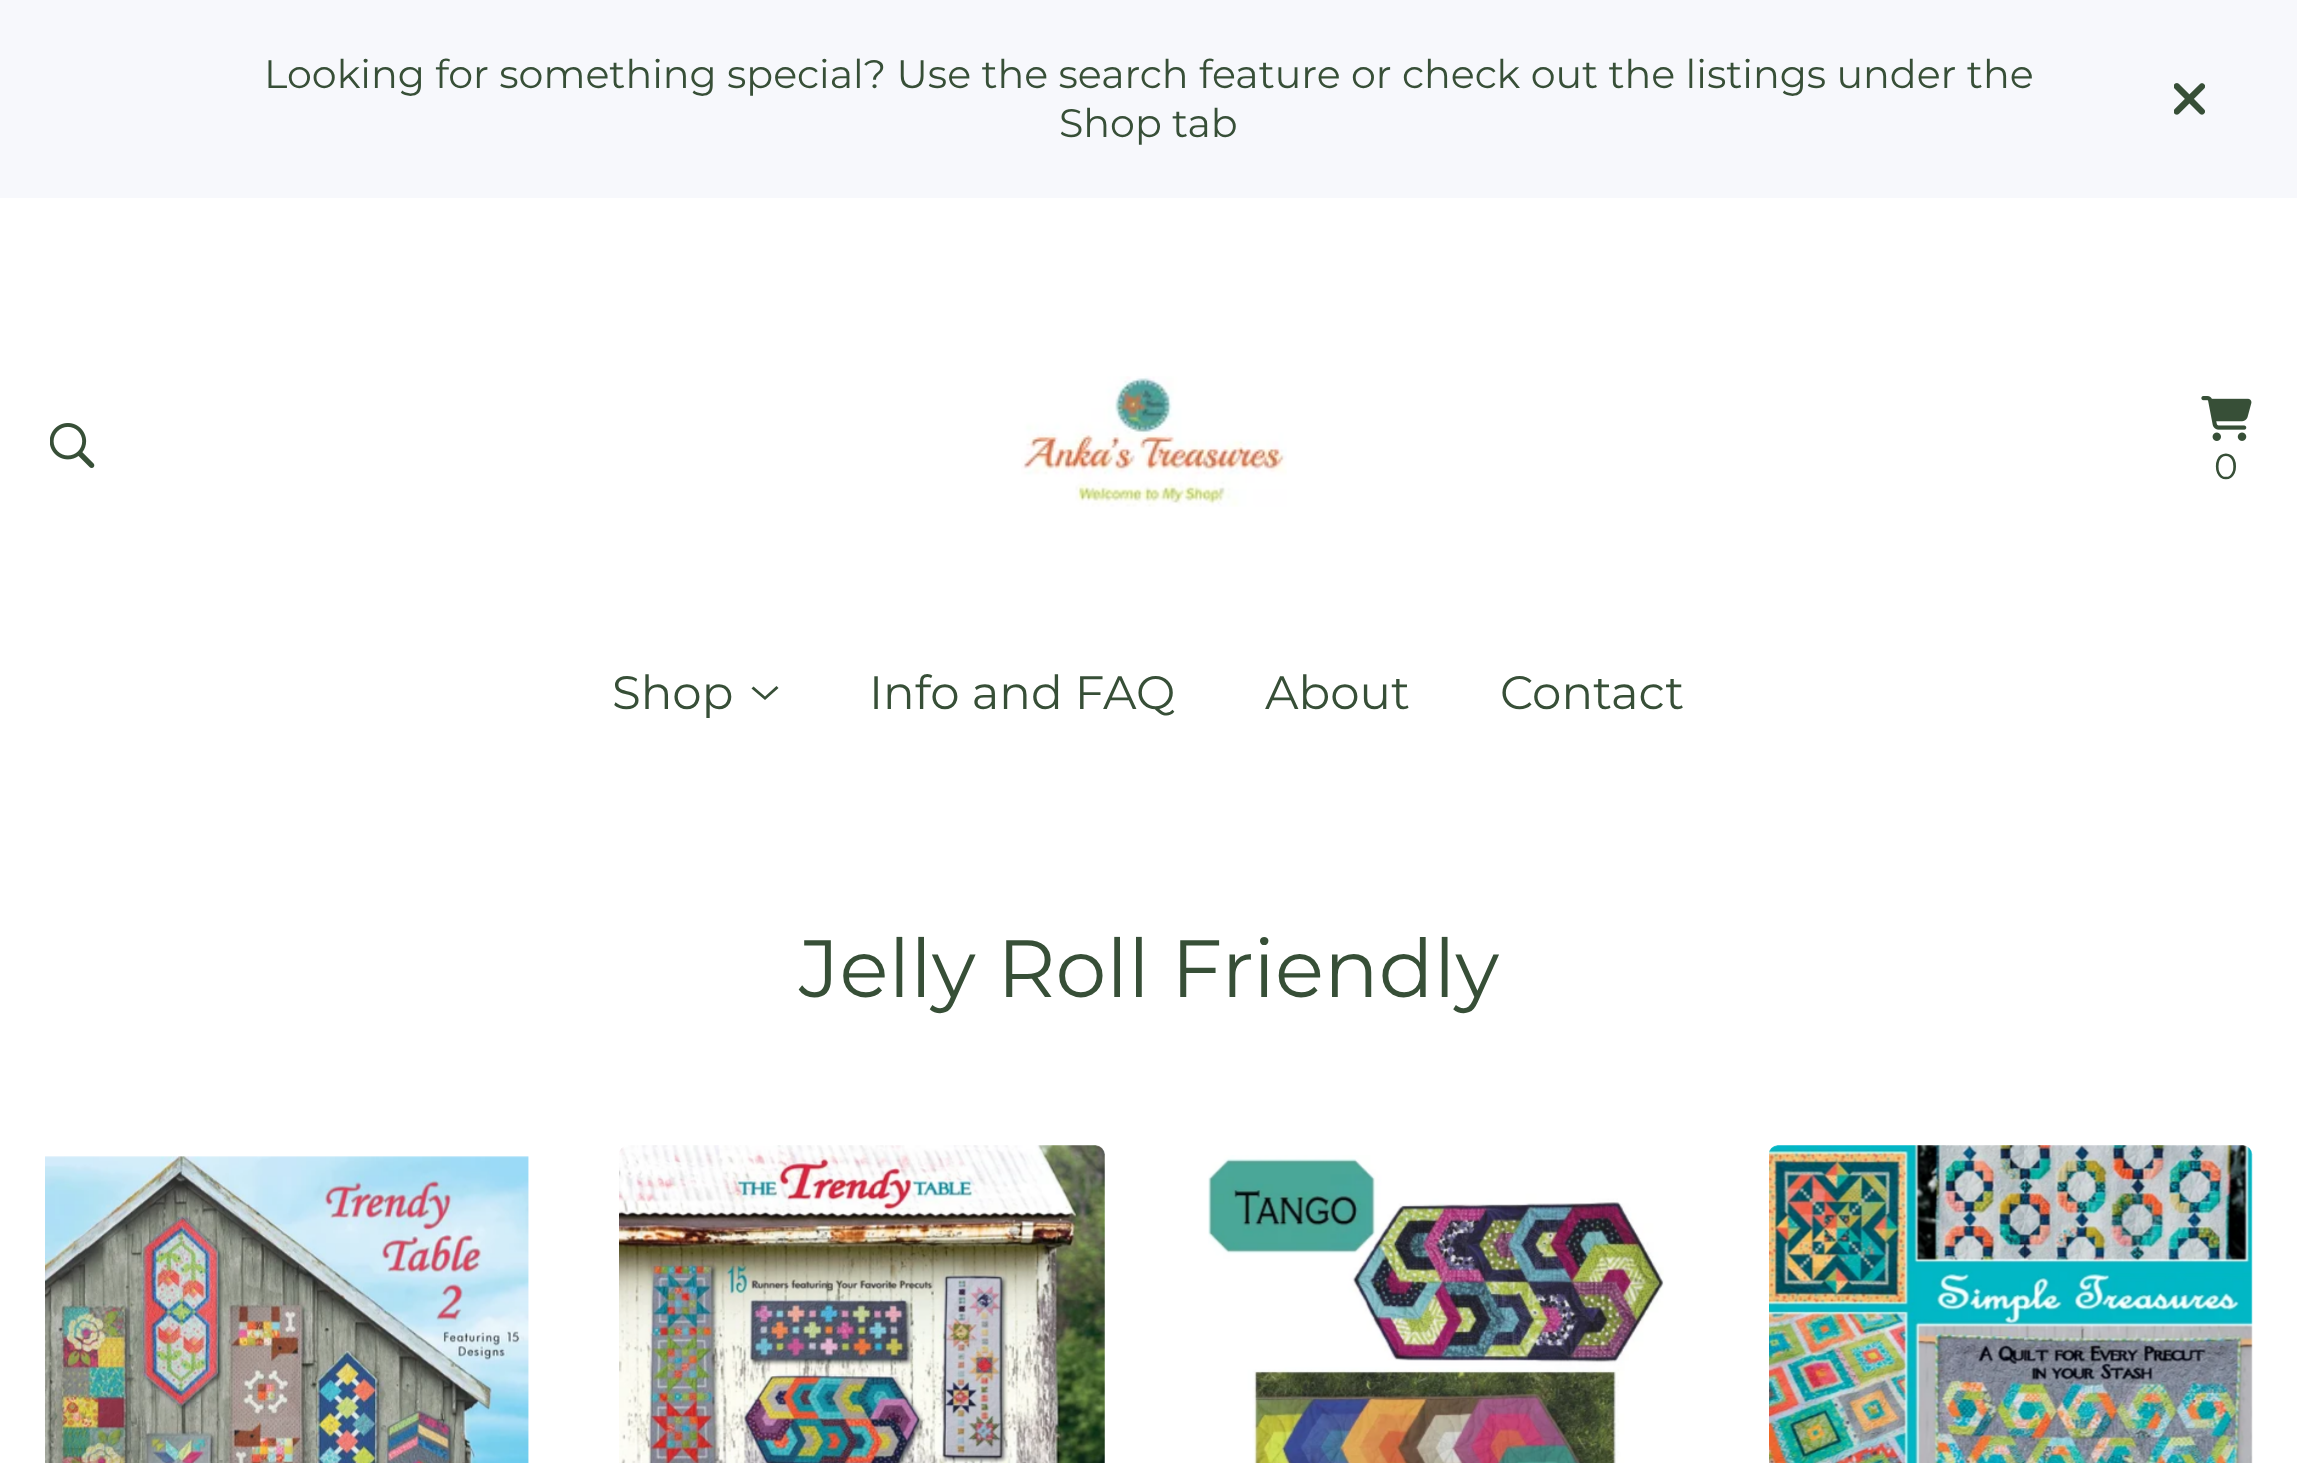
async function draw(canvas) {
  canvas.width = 2297;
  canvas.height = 1463;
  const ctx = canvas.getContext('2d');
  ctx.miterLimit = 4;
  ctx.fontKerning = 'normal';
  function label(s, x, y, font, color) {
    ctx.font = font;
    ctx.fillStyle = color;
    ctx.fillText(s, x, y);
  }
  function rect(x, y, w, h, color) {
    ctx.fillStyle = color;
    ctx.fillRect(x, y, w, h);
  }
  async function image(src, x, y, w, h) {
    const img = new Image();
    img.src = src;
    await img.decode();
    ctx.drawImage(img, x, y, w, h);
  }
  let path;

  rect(0, 0, 2297, 1463, '#fff');
  rect(0, 0, 2297, 198, '#f7f8fc');
  label('Looking for something special? Use the search feature or check out the listings under the', 264, 88, '39.6px Montserrat', '#374f37');
  label('Shop tab', 1059, 137, '39.6px Montserrat', '#374f37');
  await image('assets/img1.png', 2174, 83, 31, 32);
  await image('assets/img2.png', 50, 423, 45, 45);
  await image('assets/img3.png', 1021, 376, 266, 131);
  await image('assets/img4.png', 2201, 396, 51, 45);
  label('0', 2214, 479, '36px Montserrat', '#374f37');
  label('Shop', 612, 709, '46.75px Montserrat', '#374f37');
  path = new Path2D('M778.5 688L765 700L751.5 688.5L753.5 686.5L765 696.5L776.5 686Z');
  ctx.fill(path);
  label('Info and FAQ', 869, 709, '46.75px Montserrat', '#374f37');
  label('About', 1265, 709, '46.75px Montserrat', '#374f37');
  label('Contact', 1500, 709, '46.75px Montserrat', '#374f37');
  label('Jelly Roll Friendly', 799, 997, '81px Montserrat', '#374f37');
  await image('assets/img5.png', 45, 1156, 484, 307);
  await image('assets/img6.png', 619, 1145, 486, 318);
  await image('assets/img7.png', 1208, 1155, 456, 308);
  await image('assets/img8.png', 1769, 1145, 484, 318);
}

draw(document.querySelector('canvas'));
